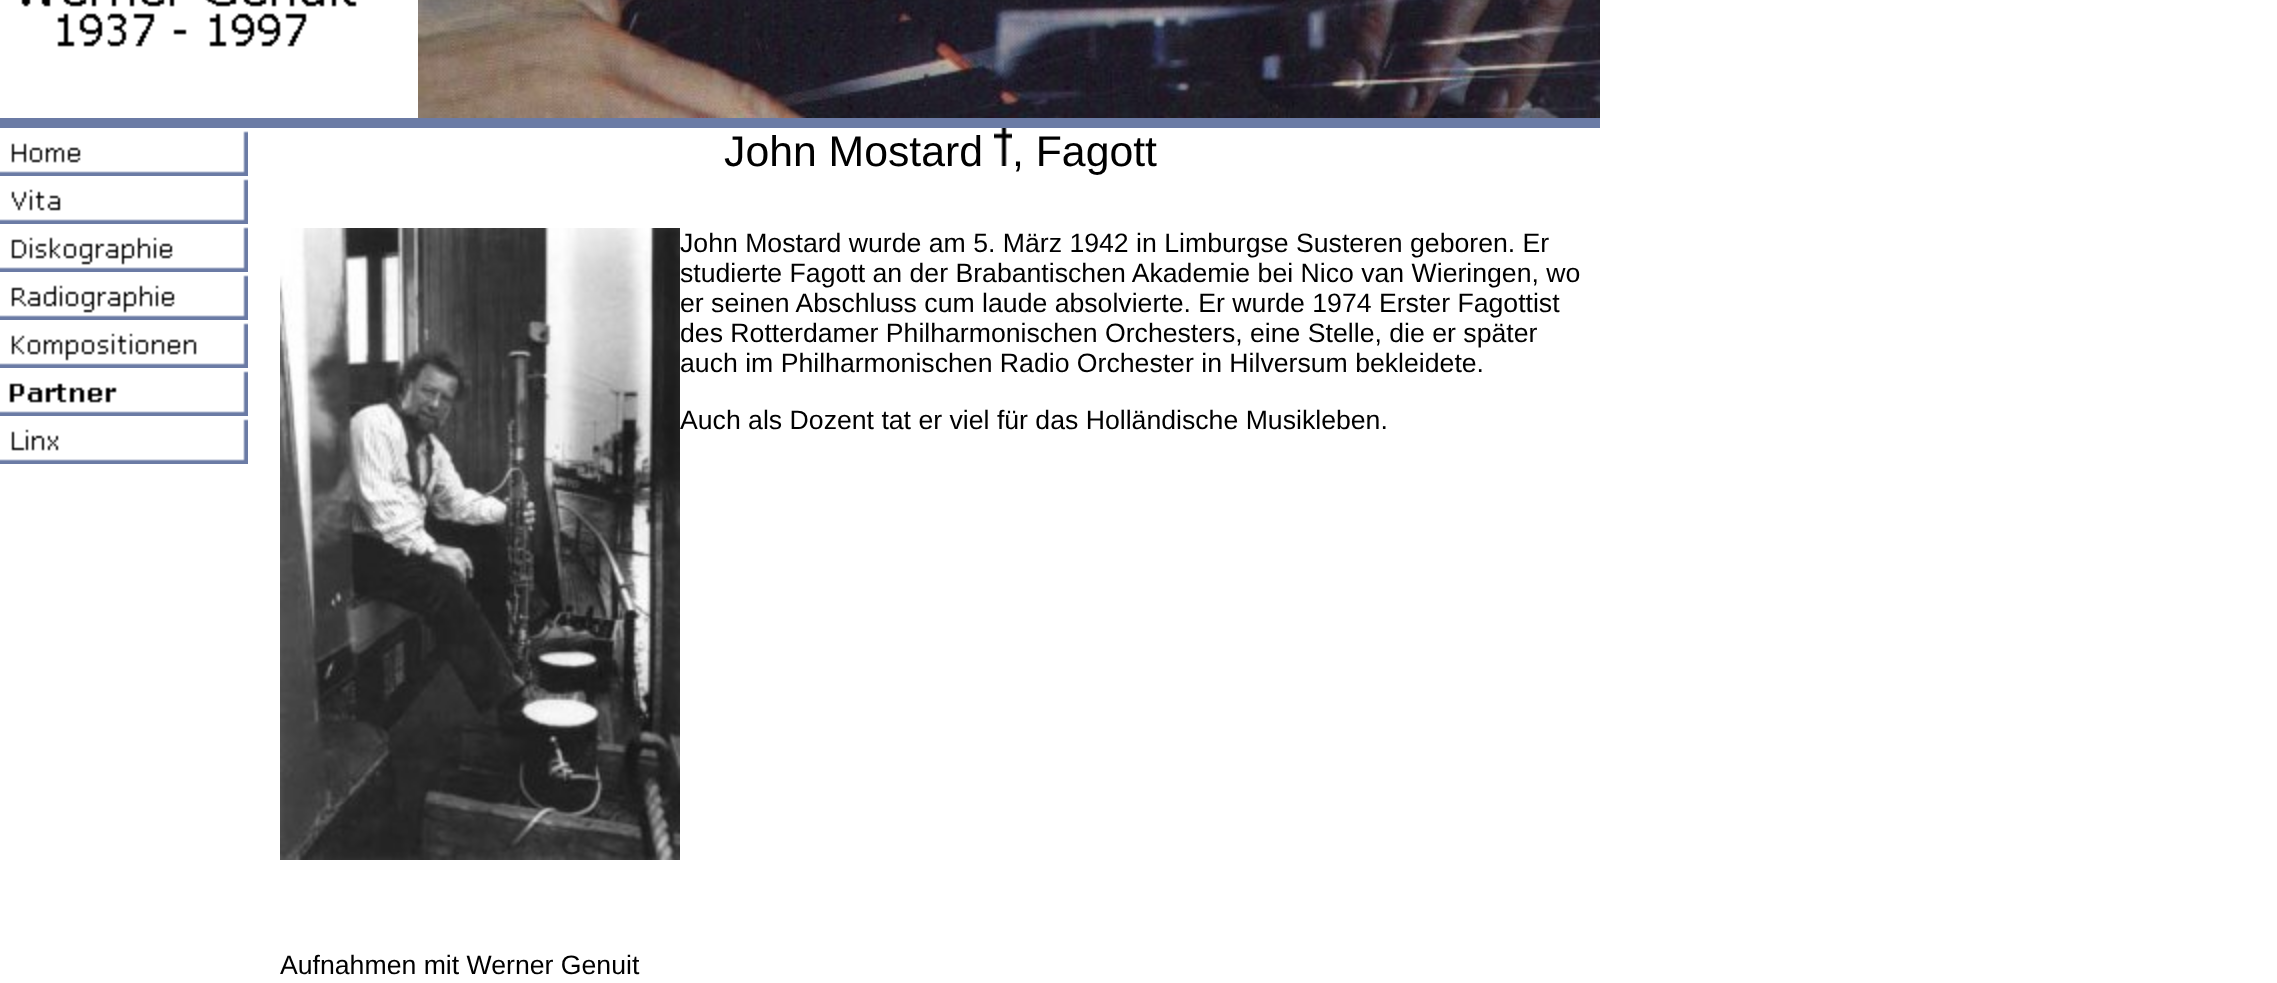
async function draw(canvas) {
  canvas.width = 2277;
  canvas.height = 983;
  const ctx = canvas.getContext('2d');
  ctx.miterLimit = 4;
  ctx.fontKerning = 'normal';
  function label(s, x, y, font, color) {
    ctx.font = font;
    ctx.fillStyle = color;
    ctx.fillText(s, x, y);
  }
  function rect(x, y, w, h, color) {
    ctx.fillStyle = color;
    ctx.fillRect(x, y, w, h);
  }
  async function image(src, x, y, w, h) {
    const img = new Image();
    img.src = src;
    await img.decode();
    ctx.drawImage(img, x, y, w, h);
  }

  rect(0, 0, 2277, 983, '#fff');
  await image('assets/img1.png', 21, 0, 336, 47);
  await image('assets/img2.png', 418, 0, 1182, 118);
  rect(0, 118, 1600, 10, '#6b7ba5');
  await image('assets/img3.png', 0, 131, 248, 45);
  await image('assets/img4.png', 0, 179, 248, 45);
  await image('assets/img5.png', 0, 227, 248, 45);
  await image('assets/img6.png', 0, 275, 248, 45);
  await image('assets/img7.png', 0, 323, 248, 45);
  await image('assets/img8.png', 0, 371, 248, 45);
  await image('assets/img9.png', 0, 419, 248, 45);
  label('John Mostard', 724, 166, '42.75px Liberation Sans', '#000');
  await image('assets/img10.png', 994, 128, 18, 38);
  label(', Fagott', 1012, 166, '42.75px Liberation Sans', '#000');
  await image('assets/img11.png', 280, 228, 400, 632);
  label('John Mostard wurde am 5. März 1942 in Limburgse Susteren geboren. Er', 680, 252, '26.65px Liberation Sans', '#000');
  label('studierte Fagott an der Brabantischen Akademie bei Nico van Wieringen, wo', 680, 282, '26.65px Liberation Sans', '#000');
  label('er seinen Abschluss cum laude absolvierte. Er wurde 1974 Erster Fagottist', 680, 312, '26.65px Liberation Sans', '#000');
  label('des Rotterdamer Philharmonischen Orchesters, eine Stelle, die er später', 680, 342, '26.65px Liberation Sans', '#000');
  label('auch im Philharmonischen Radio Orchester in Hilversum bekleidete.', 680, 372, '26.65px Liberation Sans', '#000');
  label('Auch als Dozent tat er viel für das Holländische Musikleben.', 680, 429, '26.65px Liberation Sans', '#000');
  label('Aufnahmen mit Werner Genuit', 280, 974, '26.65px Liberation Sans', '#000');
}

draw(document.querySelector('canvas'));
